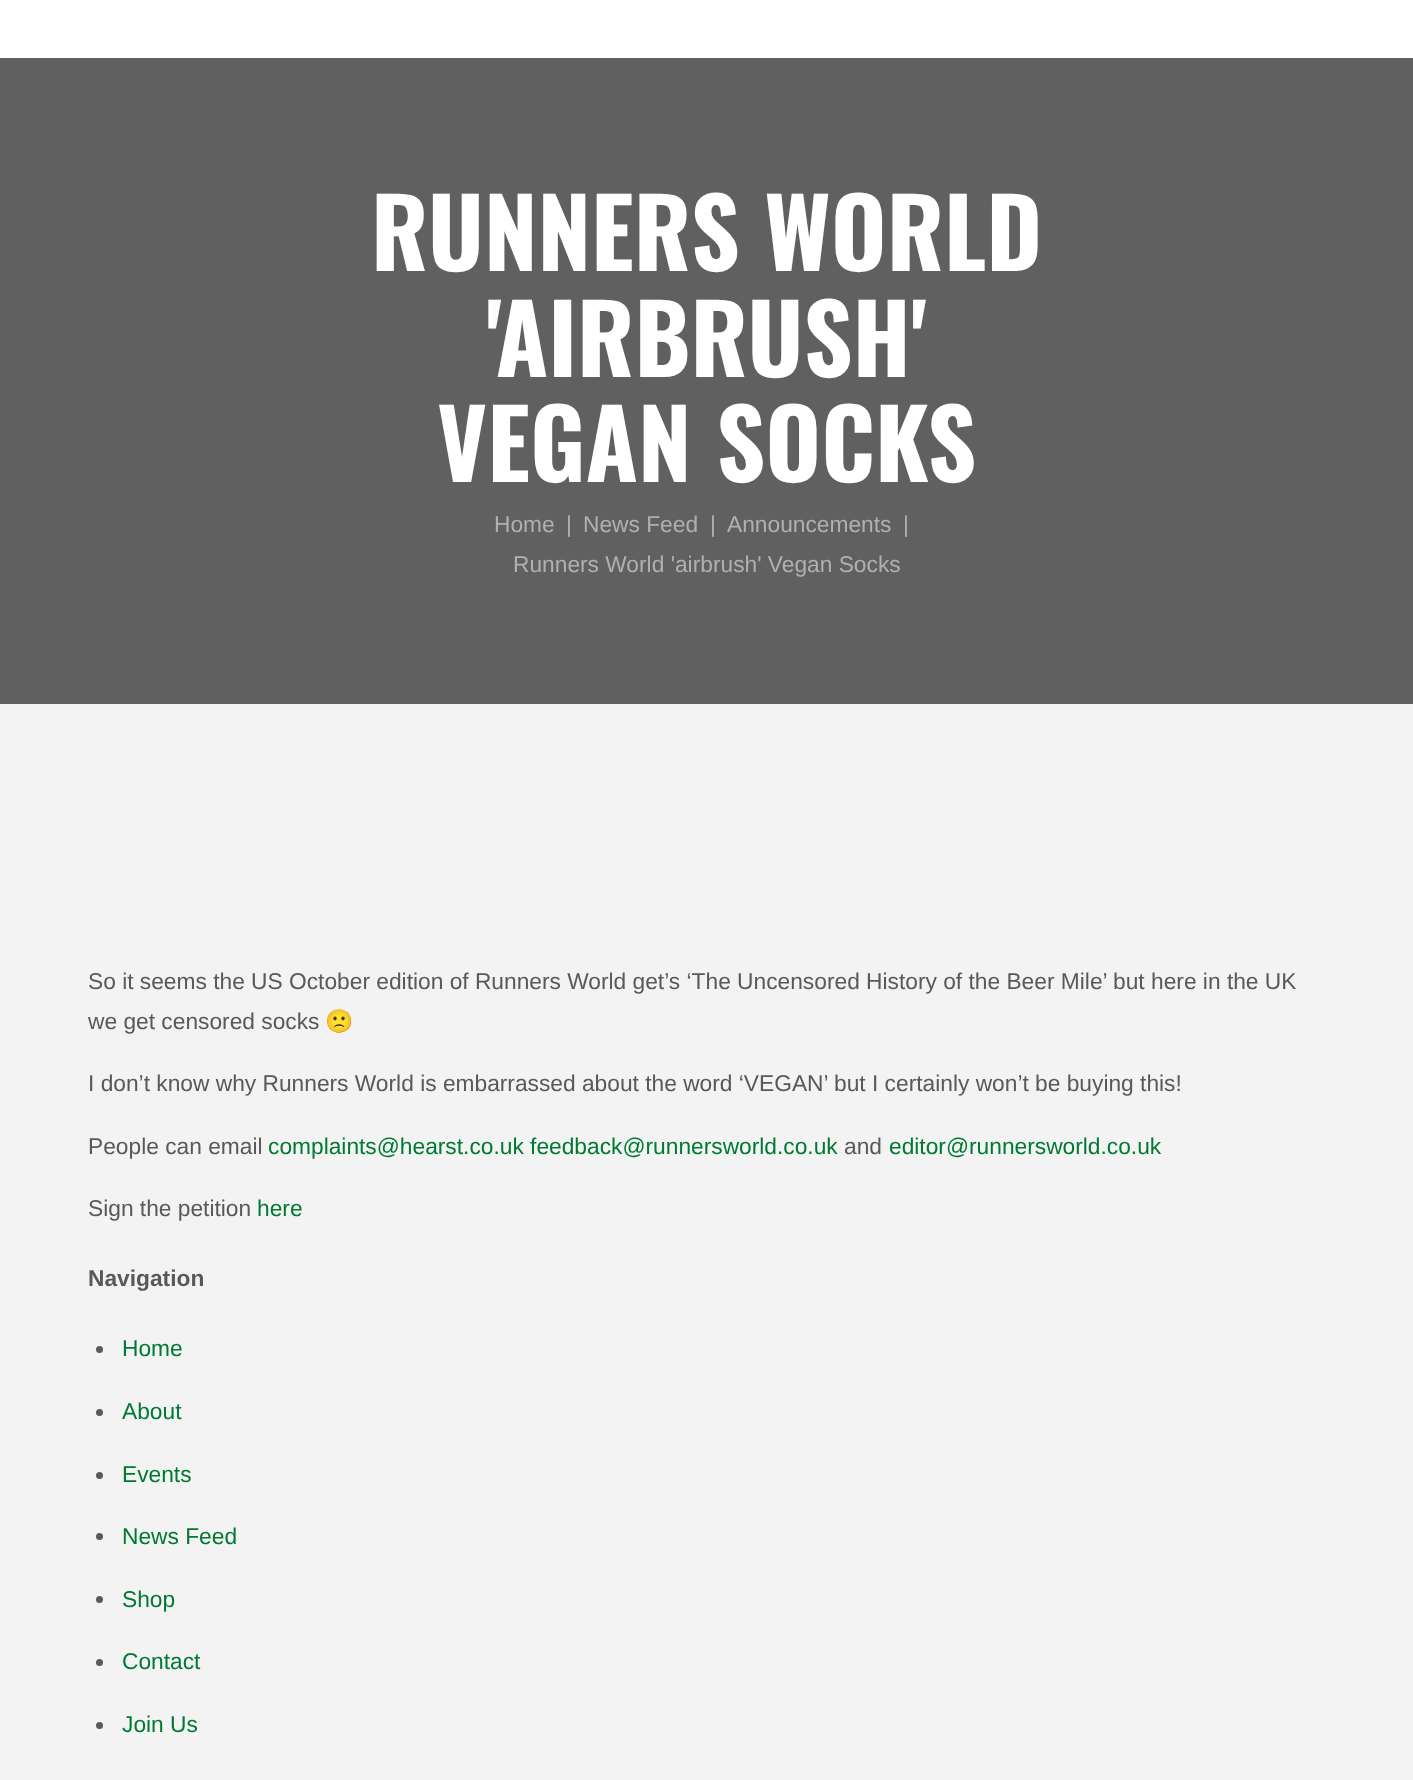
async function draw(canvas) {
  canvas.width = 1413;
  canvas.height = 1780;
  const ctx = canvas.getContext('2d');
  ctx.miterLimit = 4;
  ctx.fontKerning = 'normal';
  function label(s, x, y, font, color) {
    ctx.font = font;
    ctx.fillStyle = color;
    ctx.fillText(s, x, y);
  }
  function rect(x, y, w, h, color) {
    ctx.fillStyle = color;
    ctx.fillRect(x, y, w, h);
  }

  rect(0, 0, 1413, 1780, '#f3f3f3');
  rect(0, 0, 1413, 58, '#fff');
  rect(0, 58, 1413, 646, '#606060');
  label('RUNNERS WORLD', 371, 271, 'bold 95.5px Oswald', '#fff');
  label('\'AIRBRUSH\'', 486, 377, 'bold 95.5px Oswald', '#fff');
  label('VEGAN SOCKS', 437, 482, 'bold 95.5px Oswald', '#fff');
  label('Home', 494, 532, '22.75px Liberation Sans', '#b0b0b0');
  label('|', 566, 532, '22.75px Liberation Sans', '#b0b0b0');
  label('News Feed', 583, 532, '22.75px Liberation Sans', '#b0b0b0');
  label('|', 710, 532, '22.75px Liberation Sans', '#b0b0b0');
  label('Announcements', 727, 532, '22.75px Liberation Sans', '#b0b0b0');
  label('|', 903, 532, '22.75px Liberation Sans', '#b0b0b0');
  label('Runners World \'airbrush\' Vegan Socks', 513, 572, '22.75px Liberation Sans', '#b0b0b0');
  label('So it seems the US October edition of Runners World get’s ‘The Uncensored History of the Beer Mile’ but here in the UK', 88, 989, '22.75px Liberation Sans', '#595959');
  label('we get censored socks', 88, 1029, '22.75px Liberation Sans', '#595959');
  label('🙁', 325, 1029, '22.75px Noto Color Emoji', '#595959');
  label('I don’t know why Runners World is embarrassed about the word ‘VEGAN’ but I certainly won’t be buying this!', 88, 1091, '22.75px Liberation Sans', '#595959');
  label('People can email', 88, 1154, '22.75px Liberation Sans', '#595959');
  label('complaints@hearst.co.uk feedback@runnersworld.co.uk', 268, 1154, '22.75px Liberation Sans', '#007a33');
  label('and', 844, 1154, '22.75px Liberation Sans', '#595959');
  label('editor@runnersworld.co.uk', 889, 1154, '22.75px Liberation Sans', '#007a33');
  label('Sign the petition', 88, 1216, '22.75px Liberation Sans', '#595959');
  label('here', 257, 1216, '22.75px Liberation Sans', '#007a33');
  label('Navigation', 88, 1286, 'bold 22.75px Liberation Sans', '#595959');
  ctx.beginPath();
  ctx.arc(99.5, 1349.5, 3.5, 0, 2 * Math.PI);
  ctx.fill();
  label('Home', 122, 1356, '22.75px Liberation Sans', '#007a33');
  ctx.fillStyle = '#595959';
  ctx.beginPath();
  ctx.arc(99.5, 1412.5, 3.5, 0, 2 * Math.PI);
  ctx.fill();
  label('About', 122, 1419, '22.75px Liberation Sans', '#007a33');
  ctx.fillStyle = '#595959';
  ctx.beginPath();
  ctx.arc(99.5, 1475.5, 3.5, 0, 2 * Math.PI);
  ctx.fill();
  label('Events', 122, 1482, '22.75px Liberation Sans', '#007a33');
  ctx.fillStyle = '#595959';
  ctx.beginPath();
  ctx.arc(99.5, 1536.5, 3.5, 0, 2 * Math.PI);
  ctx.fill();
  label('News Feed', 122, 1544, '22.75px Liberation Sans', '#007a33');
  ctx.fillStyle = '#595959';
  ctx.beginPath();
  ctx.arc(99.5, 1599.5, 3.5, 0, 2 * Math.PI);
  ctx.fill();
  label('Shop', 122, 1607, '22.75px Liberation Sans', '#007a33');
  ctx.fillStyle = '#595959';
  ctx.beginPath();
  ctx.arc(99.5, 1662.5, 3.5, 0, 2 * Math.PI);
  ctx.fill();
  label('Contact', 122, 1669, '22.75px Liberation Sans', '#007a33');
  ctx.fillStyle = '#595959';
  ctx.beginPath();
  ctx.arc(99.5, 1725.5, 3.5, 0, 2 * Math.PI);
  ctx.fill();
  label('Join Us', 122, 1732, '22.75px Liberation Sans', '#007a33');
}

draw(document.querySelector('canvas'));
